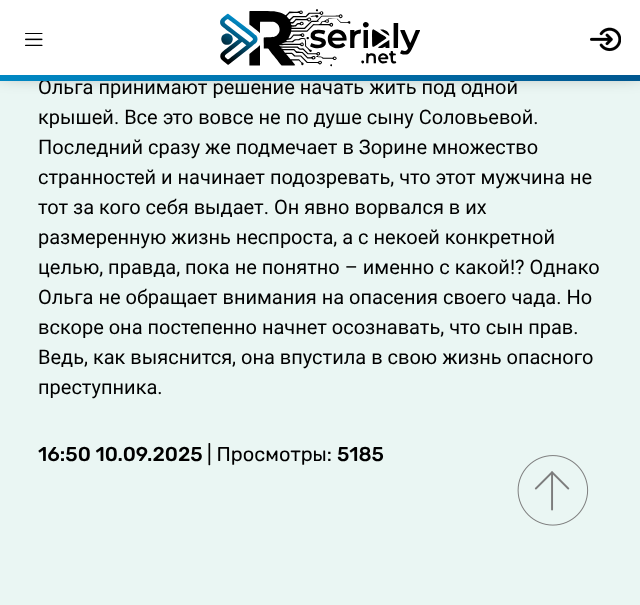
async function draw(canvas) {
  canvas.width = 640;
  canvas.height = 605;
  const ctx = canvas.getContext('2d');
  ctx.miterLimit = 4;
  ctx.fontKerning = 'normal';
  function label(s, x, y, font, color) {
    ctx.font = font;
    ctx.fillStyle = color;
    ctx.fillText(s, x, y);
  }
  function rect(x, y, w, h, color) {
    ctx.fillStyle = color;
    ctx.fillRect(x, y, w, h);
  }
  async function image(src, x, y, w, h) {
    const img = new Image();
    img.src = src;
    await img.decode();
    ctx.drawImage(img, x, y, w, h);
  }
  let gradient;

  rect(0, 0, 640, 605, '#eaf6f3');
  ctx.fillStyle = '#000';
  ctx.filter = 'blur(12.5px)';
  ctx.beginPath();
  ctx.rect(1, -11, 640, 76);
  ctx.fill();
  ctx.filter = 'none';
  rect(0, 0, 640, 75, '#fff');
  await image('assets/img1.png', 25, 33, 18, 13);
  await image('assets/img2.png', 220, 9, 200, 58);
  await image('assets/img3.png', 590, 27, 31, 25);
  label('Ольга принимают решение начать жить под одной', 38, 94, '20px Roboto', '#000');
  gradient = ctx.createLinearGradient(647, 224, 73, -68);
  gradient.addColorStop(0, '#00518a');
  gradient.addColorStop(1, '#0088c3');
  ctx.fillStyle = gradient;
  ctx.fillRect(0, 75, 640, 6);
  label('крышей. Все это вовсе не по душе сыну Соловьевой.', 38, 124, '20px Roboto', '#000');
  label('Последний сразу же подмечает в Зорине множество', 38, 154, '20px Roboto', '#000');
  label('странностей и начинает подозревать, что этот мужчина не', 38, 184, '20px Roboto', '#000');
  label('тот за кого себя выдает. Он явно ворвался в их', 38, 214, '20px Roboto', '#000');
  label('размеренную жизнь неспроста, а с некоей конкретной', 38, 244, '20px Roboto', '#000');
  label('целью, правда, пока не понятно – именно с какой!? Однако', 38, 274, '20px Roboto', '#000');
  label('Ольга не обращает внимания на опасения своего чада. Но', 38, 304, '20px Roboto', '#000');
  label('вскоре она постепенно начнет осознавать, что сын прав.', 38, 334, '20px Roboto', '#000');
  label('Ведь, как выяснится, она впустила в свою жизнь опасного', 38, 364, '20px Roboto', '#000');
  label('преступника.', 38, 394, '20px Roboto', '#000');
  label('16:50 10.09.2025', 38, 461, '300 20px Rubik', '#000');
  label('| Просмотры:', 207, 461, '300 20px "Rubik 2"', '#000');
  label('5185', 337, 461, '300 20px Rubik', '#000');
  await image('assets/img4.png', 517, 455, 72, 71);
}

draw(document.querySelector('canvas'));
